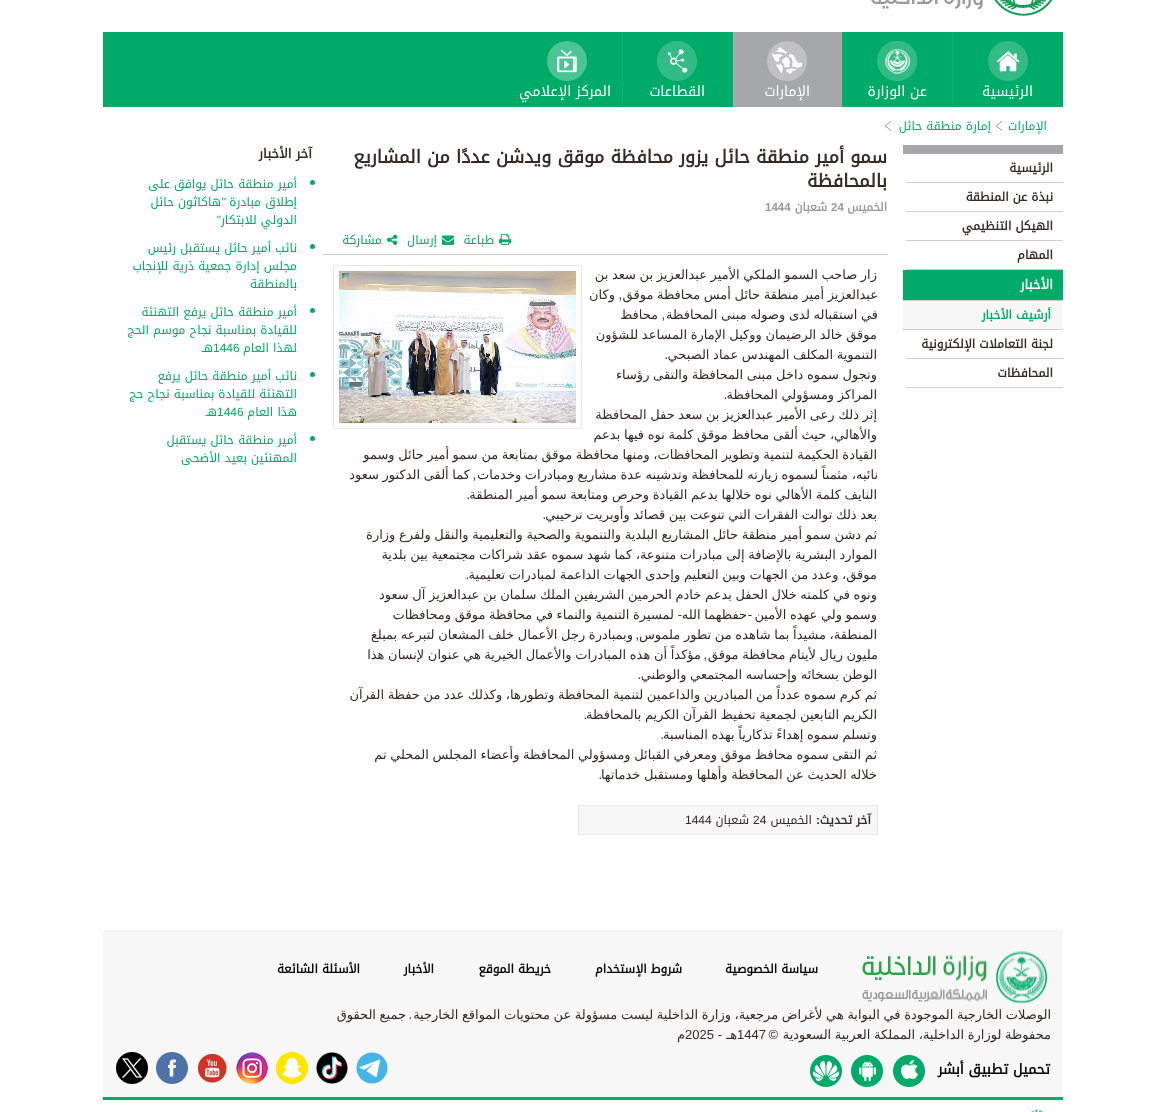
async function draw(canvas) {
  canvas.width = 1165;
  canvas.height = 1112;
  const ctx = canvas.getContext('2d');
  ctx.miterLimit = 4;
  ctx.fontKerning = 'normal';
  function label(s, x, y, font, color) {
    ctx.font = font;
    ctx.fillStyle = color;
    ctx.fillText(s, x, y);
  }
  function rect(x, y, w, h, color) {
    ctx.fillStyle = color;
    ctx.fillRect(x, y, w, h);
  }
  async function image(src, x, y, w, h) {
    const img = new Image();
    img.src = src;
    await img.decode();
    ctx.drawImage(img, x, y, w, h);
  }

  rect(0, 0, 1165, 1112, '#fff');
  await image('assets/img1.png', 871, 0, 182, 16);
  rect(103, 32, 960, 75, '#00ab67');
  await image('assets/img2.png', 988, 41, 40, 40);
  ctx.direction = 'rtl';
  label('الرئيسية', 1033, 96, '14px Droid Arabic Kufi', '#fff');
  rect(952, 32, 1, 75, '#00b76d');
  await image('assets/img3.png', 877, 41, 40, 40);
  label('عن الوزارة', 927, 96, '14px Droid Arabic Kufi', '#fff');
  rect(733, 32, 109, 75, '#a6a7a9');
  rect(842, 32, 1, 75, '#00b76d');
  ctx.fillStyle = '#c1c1c3';
  ctx.beginPath();
  ctx.arc(787, 61, 20, 0, 2 * Math.PI);
  ctx.fill();
  await image('assets/img4.png', 772, 47, 31, 28);
  label('الإمارات', 810, 96, '14px Droid Arabic Kufi', '#fff');
  rect(732, 32, 1, 75, '#00b76d');
  await image('assets/img5.png', 657, 41, 40, 40);
  label('القطاعات', 705, 96, '14px Droid Arabic Kufi', '#fff');
  rect(622, 32, 1, 75, '#00b76d');
  ctx.fillStyle = '#4dc495';
  ctx.beginPath();
  ctx.arc(567, 61, 20, 0, 2 * Math.PI);
  ctx.fill();
  await image('assets/img6.png', 557, 50, 20, 23);
  label('المركز الإعلامي', 611, 96, '14px Droid Arabic Kufi', '#fff');
  await image('assets/img7.png', 996, 121, 6, 10);
  label('الإمارات', 1047, 130, '12px Droid Arabic Kufi', '#00ab67');
  await image('assets/img7.png', 885, 121, 6, 10);
  label('إمارة منطقة حائل', 991, 130, '12px Droid Arabic Kufi', '#00ab67');
  rect(903, 145, 160, 9, '#a6a7a9');
  rect(906, 182, 157, 1, '#cdcdcd');
  label('الرئيسية', 1053, 172, 'bold 12px Droid Arabic Kufi', '#352a25');
  rect(906, 211, 157, 1, '#cdcdcd');
  label('نبذة عن المنطقة', 1053, 201, 'bold 12px Droid Arabic Kufi', '#352a25');
  rect(906, 240, 157, 1, '#cdcdcd');
  label('الهيكل التنظيمي', 1053, 230, 'bold 12px Droid Arabic Kufi', '#352a25');
  rect(906, 269, 157, 1, '#cdcdcd');
  label('المهام', 1053, 259, 'bold 12px Droid Arabic Kufi', '#352a25');
  rect(903, 270, 160, 30, '#00ab67');
  rect(903, 300, 160, 1, '#cdcdcd');
  label('الأخبار', 1053, 289, 'bold 13px Droid Arabic Kufi', '#fff');
  rect(903, 301, 160, 28, '#f7f7f7');
  rect(903, 329, 160, 1, '#cdcdcd');
  label('أرشيف الأخبار', 1051, 319, 'bold 12px Droid Arabic Kufi', '#00ab67');
  rect(906, 358, 157, 1, '#cdcdcd');
  label('لجنة التعاملات الإلكترونية', 1053, 348, 'bold 12px Droid Arabic Kufi', '#352a25');
  rect(906, 387, 157, 1, '#cdcdcd');
  label('المحافظات', 1053, 377, 'bold 12px Droid Arabic Kufi', '#352a25');
  label('سمو أمير منطقة حائل يزور محافظة موقق ويدشن عددًا من المشاريع', 887, 163, 'bold 18px Droid Arabic Kufi', '#352a25');
  label('بالمحافظة', 887, 187, 'bold 18px Droid Arabic Kufi', '#352a25');
  label('الخميس', 887, 211, 'bold 11.5px Droid Arabic Kufi', '#999');
  ctx.direction = 'ltr';
  label('24', 831, 211, 'bold 11.5px Liberation Sans', '#999');
  ctx.direction = 'rtl';
  label('شعبان', 827, 211, 'bold 11.5px Droid Arabic Kufi', '#999');
  ctx.direction = 'ltr';
  label('1444', 765, 211, 'bold 11.5px Liberation Sans', '#999');
  rect(323, 254, 565, 1, '#cdcdcd');
  await image('assets/img8.png', 499, 233, 13, 12);
  ctx.direction = 'rtl';
  label('طباعة', 494, 244, '12px Droid Arabic Kufi', '#00ab67');
  await image('assets/img9.png', 442, 235, 12, 10);
  label('إرسال', 437, 244, '12px Droid Arabic Kufi', '#00ab67');
  await image('assets/img10.png', 387, 234, 11, 11);
  label('مشاركة', 382, 244, '12px Droid Arabic Kufi', '#00ab67');
  ctx.strokeStyle = '#e8e8e8';
  ctx.strokeRect(333.5, 265.5, 248, 163);
  await image('assets/img11.png', 339, 271, 237, 152);
  ctx.wordSpacing = '-0.5px';
  label('زار صاحب السمو الملكي الأمير عبدالعزيز بن سعد بن', 877, 279, '13px DejaVu Sans', '#352a25');
  label('عبدالعزيز أمير منطقة حائل أمس محافظة موقق', 878, 299, '13px DejaVu Sans', '#352a25');
  ctx.wordSpacing = '0px';
  label(',', 622, 299, '13px Liberation Sans', '#352a25');
  label('وكان', 615, 299, '13px DejaVu Sans', '#352a25');
  ctx.wordSpacing = '-0.5px';
  label('في استقباله لدى وصوله مبنى المحافظة', 878, 319, '13px DejaVu Sans', '#352a25');
  ctx.wordSpacing = '0px';
  label(',', 665, 319, '13px Liberation Sans', '#352a25');
  label('محافظ', 658, 319, '13px DejaVu Sans', '#352a25');
  ctx.wordSpacing = '-0.5px';
  label('موقق خالد الرضيمان ووكيل الإمارة المساعد للشؤون', 877, 339, '13px DejaVu Sans', '#352a25');
  label('التنموية المكلف المهندس عماد الصبحي', 877, 359, '13px DejaVu Sans', '#352a25');
  ctx.wordSpacing = '0px';
  label('.', 668, 359, '13px Liberation Sans', '#352a25');
  ctx.wordSpacing = '-0.5px';
  label('وتجول سموه داخل مبنى المحافظة والتقى رؤساء', 877, 379, '13px DejaVu Sans', '#352a25');
  label('المراكز ومسؤولي المحافظة', 877, 399, '13px DejaVu Sans', '#352a25');
  ctx.wordSpacing = '0px';
  label('.', 727, 399, '13px Liberation Sans', '#352a25');
  ctx.wordSpacing = '-0.5px';
  label('إثر ذلك رعى الأمير عبدالعزيز بن سعد حفل المحافظة', 877, 419, '13px DejaVu Sans', '#352a25');
  label('والأهالي، حيث ألقى محافظ موقق كلمة نوه فيها بدعم', 877, 439, '13px DejaVu Sans', '#352a25');
  label('القيادة الحكيمة لتنمية وتطوير المحافظات، ومنها محافظة موقق بمتابعة من سمو أمير حائل وسمو', 877, 459, '13px DejaVu Sans', '#352a25');
  label('نائبه، مثمناً لسموه زيارته للمحافظة وتدشينه عدة مشاريع ومبادرات وخدمات', 878, 479, '13px DejaVu Sans', '#352a25');
  ctx.wordSpacing = '0px';
  label(',', 476, 479, '13px Liberation Sans', '#352a25');
  ctx.wordSpacing = '-0.5px';
  label('كما ألقى الدكتور سعود', 470, 479, '13px DejaVu Sans', '#352a25');
  label('النايف كلمة الأهالي نوه خلالها بدعم القيادة وحرص ومتابعة سمو أمير المنطقة', 877, 499, '13px DejaVu Sans', '#352a25');
  ctx.wordSpacing = '0px';
  label('.', 470, 499, '13px Liberation Sans', '#352a25');
  ctx.wordSpacing = '-0.5px';
  label('بعد ذلك توالت الفقرات التي تنوعت بين قصائد وأوبريت ترحيبي', 877, 519, '13px DejaVu Sans', '#352a25');
  ctx.wordSpacing = '0px';
  label('.', 546, 519, '13px Liberation Sans', '#352a25');
  ctx.wordSpacing = '-0.5px';
  label('ثم دشن سمو أمير منطقة حائل المشاريع البلدية والتنموية والصحية والتعليمية والنقل ولفرع وزارة', 877, 539, '13px DejaVu Sans', '#352a25');
  label('الموارد البشرية بالإضافة إلى مبادرات متنوعة، كما شهد سموه عقد شراكات مجتمعية بين بلدية', 877, 559, '13px DejaVu Sans', '#352a25');
  label('موقق، وعدد من الجهات وبين التعليم وإحدى الجهات الداعمة لمبادرات تعليمية', 877, 579, '13px DejaVu Sans', '#352a25');
  ctx.wordSpacing = '0px';
  label('.', 469, 579, '13px Liberation Sans', '#352a25');
  ctx.wordSpacing = '-0.5px';
  label('ونوه في كلمته خلال الحفل بدعم خادم الحرمين الشريفين الملك سلمان بن عبدالعزيز آل سعود', 877, 599, '13px DejaVu Sans', '#352a25');
  label('وسمو ولي عهده الأمين', 877, 619, '13px DejaVu Sans', '#352a25');
  ctx.wordSpacing = '0px';
  label('-', 752, 619, '13px Liberation Sans', '#352a25');
  ctx.wordSpacing = '-0.5px';
  label('حفظهما الله', 747, 619, '13px DejaVu Sans', '#352a25');
  ctx.wordSpacing = '0px';
  label('-', 682, 619, '13px Liberation Sans', '#352a25');
  ctx.wordSpacing = '-0.5px';
  label('لمسيرة التنمية والنماء في محافظة موقق ومحافظات', 674, 619, '13px DejaVu Sans', '#352a25');
  label('المنطقة، مشيداً بما شاهده من تطور ملموس', 877, 639, '13px DejaVu Sans', '#352a25');
  ctx.wordSpacing = '0px';
  label(',', 639, 639, '13px Liberation Sans', '#352a25');
  ctx.wordSpacing = '-0.5px';
  label('وبمبادرة رجل الأعمال خلف المشعان لتبرعه بمبلغ', 633, 639, '13px DejaVu Sans', '#352a25');
  label('مليون ريال لأيتام محافظة موقق', 878, 659, '13px DejaVu Sans', '#352a25');
  ctx.wordSpacing = '0px';
  label(',', 707, 659, '13px Liberation Sans', '#352a25');
  ctx.wordSpacing = '-0.5px';
  label('مؤكداً أن هذه المبادرات والأعمال الخيرية هي عنوان لإنسان هذا', 701, 659, '13px DejaVu Sans', '#352a25');
  label('الوطن بسخائه وإحساسه المجتمعي والوطني', 877, 679, '13px DejaVu Sans', '#352a25');
  ctx.wordSpacing = '0px';
  label('.', 641, 679, '13px Liberation Sans', '#352a25');
  ctx.wordSpacing = '-0.5px';
  label('ثم كرم سموه عدداً من المبادرين والداعمين لتنمية المحافظة وتطورها، وكذلك عدد من حفظة القرآن', 877, 699, '13px DejaVu Sans', '#352a25');
  label('الكريم التابعين لجمعية تحفيظ القرآن الكريم بالمحافظة', 877, 719, '13px DejaVu Sans', '#352a25');
  ctx.wordSpacing = '0px';
  label('.', 587, 719, '13px Liberation Sans', '#352a25');
  ctx.wordSpacing = '-0.5px';
  label('وتسلم سموه إهداءً تذكارياً بهذه المناسبة', 877, 739, '13px DejaVu Sans', '#352a25');
  ctx.wordSpacing = '0px';
  label('.', 664, 739, '13px Liberation Sans', '#352a25');
  ctx.wordSpacing = '-0.5px';
  label('ثم التقى سموه محافظ موقق ومعرفي القبائل ومسؤولي المحافظة وأعضاء المجلس المحلي تم', 877, 759, '13px DejaVu Sans', '#352a25');
  label('خلاله الحديث عن المحافظة وأهلها ومستقبل خدماتها', 877, 779, '13px DejaVu Sans', '#352a25');
  ctx.wordSpacing = '0px';
  label('.', 602, 779, '13px Liberation Sans', '#352a25');
  ctx.fillStyle = '#f7f7f7';
  ctx.beginPath();
  ctx.rect(578.5, 805.5, 299, 29);
  ctx.fill();
  ctx.stroke();
  label('آخر تحديث', 871, 824, 'bold 12px Droid Arabic Kufi', '#352a25');
  label(':', 820, 824, 'bold 12px Liberation Sans', '#352a25');
  label('الخميس', 812, 824, '12px Droid Arabic Kufi', '#352a25');
  ctx.direction = 'ltr';
  label('24', 753, 824, '12px Liberation Sans', '#352a25');
  ctx.direction = 'rtl';
  label('شعبان', 749, 824, '12px Droid Arabic Kufi', '#352a25');
  ctx.direction = 'ltr';
  label('1444', 685, 824, '12px Liberation Sans', '#352a25');
  ctx.direction = 'rtl';
  label('آخر الأخبار', 312, 158, 'bold 13px Droid Arabic Kufi', '#352a25');
  ctx.fillStyle = '#00ab67';
  ctx.beginPath();
  ctx.arc(312.5, 182.5, 2.5, 0, 2 * Math.PI);
  ctx.fill();
  label('أمير منطقة حائل يوافق على', 297, 188, '12px Droid Arabic Kufi', '#00ab67');
  label('إطلاق مبادرة', 297, 206, '12px Droid Arabic Kufi', '#00ab67');
  label('"', 226, 206, '12px Liberation Sans', '#00ab67');
  label('هاكاثون حائل', 221, 206, '12px Droid Arabic Kufi', '#00ab67');
  label('"', 221, 224, '12px Liberation Sans', '#00ab67');
  label('الدولي للابتكار', 297, 224, '12px Droid Arabic Kufi', '#00ab67');
  ctx.beginPath();
  ctx.arc(312.5, 246.5, 2.5, 0, 2 * Math.PI);
  ctx.fill();
  label('نائب أمير حائل يستقبل رئيس', 297, 252, '12px Droid Arabic Kufi', '#00ab67');
  label('مجلس إدارة جمعية ذرية للإنجاب', 297, 270, '12px Droid Arabic Kufi', '#00ab67');
  label('بالمنطقة', 297, 288, '12px Droid Arabic Kufi', '#00ab67');
  ctx.beginPath();
  ctx.arc(312.5, 310.5, 2.5, 0, 2 * Math.PI);
  ctx.fill();
  label('أمير منطقة حائل يرفع التهنئة', 297, 316, '12px Droid Arabic Kufi', '#00ab67');
  label('للقيادة بمناسبة نجاح موسم الحج', 297, 334, '12px Droid Arabic Kufi', '#00ab67');
  label('لهذا العام', 297, 352, '12px Droid Arabic Kufi', '#00ab67');
  ctx.direction = 'ltr';
  label('1446', 213, 352, '12px Liberation Sans', '#00ab67');
  ctx.direction = 'rtl';
  label('هـ', 213, 352, '12px Droid Arabic Kufi', '#00ab67');
  ctx.beginPath();
  ctx.arc(312.5, 374.5, 2.5, 0, 2 * Math.PI);
  ctx.fill();
  label('نائب أمير منطقة حائل يرفع', 297, 380, '12px Droid Arabic Kufi', '#00ab67');
  label('التهنئة للقيادة بمناسبة نجاح حج', 297, 398, '12px Droid Arabic Kufi', '#00ab67');
  label('هذا العام', 297, 416, '12px Droid Arabic Kufi', '#00ab67');
  ctx.direction = 'ltr';
  label('1446', 217, 416, '12px Liberation Sans', '#00ab67');
  ctx.direction = 'rtl';
  label('هـ', 217, 416, '12px Droid Arabic Kufi', '#00ab67');
  ctx.beginPath();
  ctx.arc(312.5, 438.5, 2.5, 0, 2 * Math.PI);
  ctx.fill();
  label('أمير منطقة حائل يستقبل', 297, 444, '12px Droid Arabic Kufi', '#00ab67');
  label('المهنئين بعيد الأضحى', 297, 462, '12px Droid Arabic Kufi', '#00ab67');
  rect(103, 930, 960, 167, '#f7f7f7');
  rect(103, 1097, 960, 3, '#00ab67');
  await image('assets/img12.png', 862, 951, 185, 53);
  label('سياسة الخصوصية', 818, 973, 'bold 12px Droid Arabic Kufi', '#000');
  label('شروط الإستخدام', 682, 973, 'bold 12px Droid Arabic Kufi', '#000');
  label('خريطة الموقع', 551, 973, 'bold 12px Droid Arabic Kufi', '#000');
  label('الأخبار', 434, 973, 'bold 12px Droid Arabic Kufi', '#000');
  label('الأسئلة الشائعة', 360, 973, 'bold 12px Droid Arabic Kufi', '#000');
  ctx.wordSpacing = '-0.5px';
  label('الوصلات الخارجية الموجودة في البوابة هي لأغراض مرجعية، وزارة الداخلية ليست مسؤولة عن محتويات المواقع الخارجية', 1051, 1019, '13px DejaVu Sans', '#352a25');
  ctx.wordSpacing = '0px';
  label('.', 412, 1019, '13px Liberation Sans', '#352a25');
  ctx.wordSpacing = '-0.5px';
  label('جميع الحقوق', 406, 1019, '13px DejaVu Sans', '#352a25');
  label('محفوظة لوزارة الداخلية، المملكة العربية السعودية', 1051, 1039, '13px DejaVu Sans', '#352a25');
  ctx.wordSpacing = '0px';
  label('©', 778, 1039, '13px Liberation Sans', '#352a25');
  ctx.direction = 'ltr';
  label('1447', 737, 1039, '13px Liberation Sans', '#352a25');
  ctx.direction = 'rtl';
  label('هـ', 737, 1039, '13px DejaVu Sans', '#352a25');
  label('-', 722, 1039, '13px Liberation Sans', '#352a25');
  ctx.direction = 'ltr';
  label('2025', 685, 1039, '13px Liberation Sans', '#352a25');
  ctx.direction = 'rtl';
  label('م', 685, 1039, '13px DejaVu Sans', '#352a25');
  label('تحميل تطبيق أبشر', 1050, 1074, 'bold 14px Droid Arabic Kufi', '#000');
  await image('assets/img13.png', 893, 1055, 32, 32);
  await image('assets/img14.png', 851, 1055, 32, 32);
  await image('assets/img15.png', 810, 1055, 32, 32);
  await image('assets/img16.png', 356, 1052, 32, 32);
  await image('assets/img17.png', 316, 1052, 32, 32);
  await image('assets/img18.png', 276, 1052, 32, 32);
  await image('assets/img19.png', 236, 1052, 32, 32);
  await image('assets/img20.png', 197, 1053, 30, 30);
  await image('assets/img21.png', 156, 1052, 32, 32);
  await image('assets/img22.png', 116, 1052, 32, 32);
  await image('assets/img23.png', 1031, 1109, 15, 3);
}

draw(document.querySelector('canvas'));
